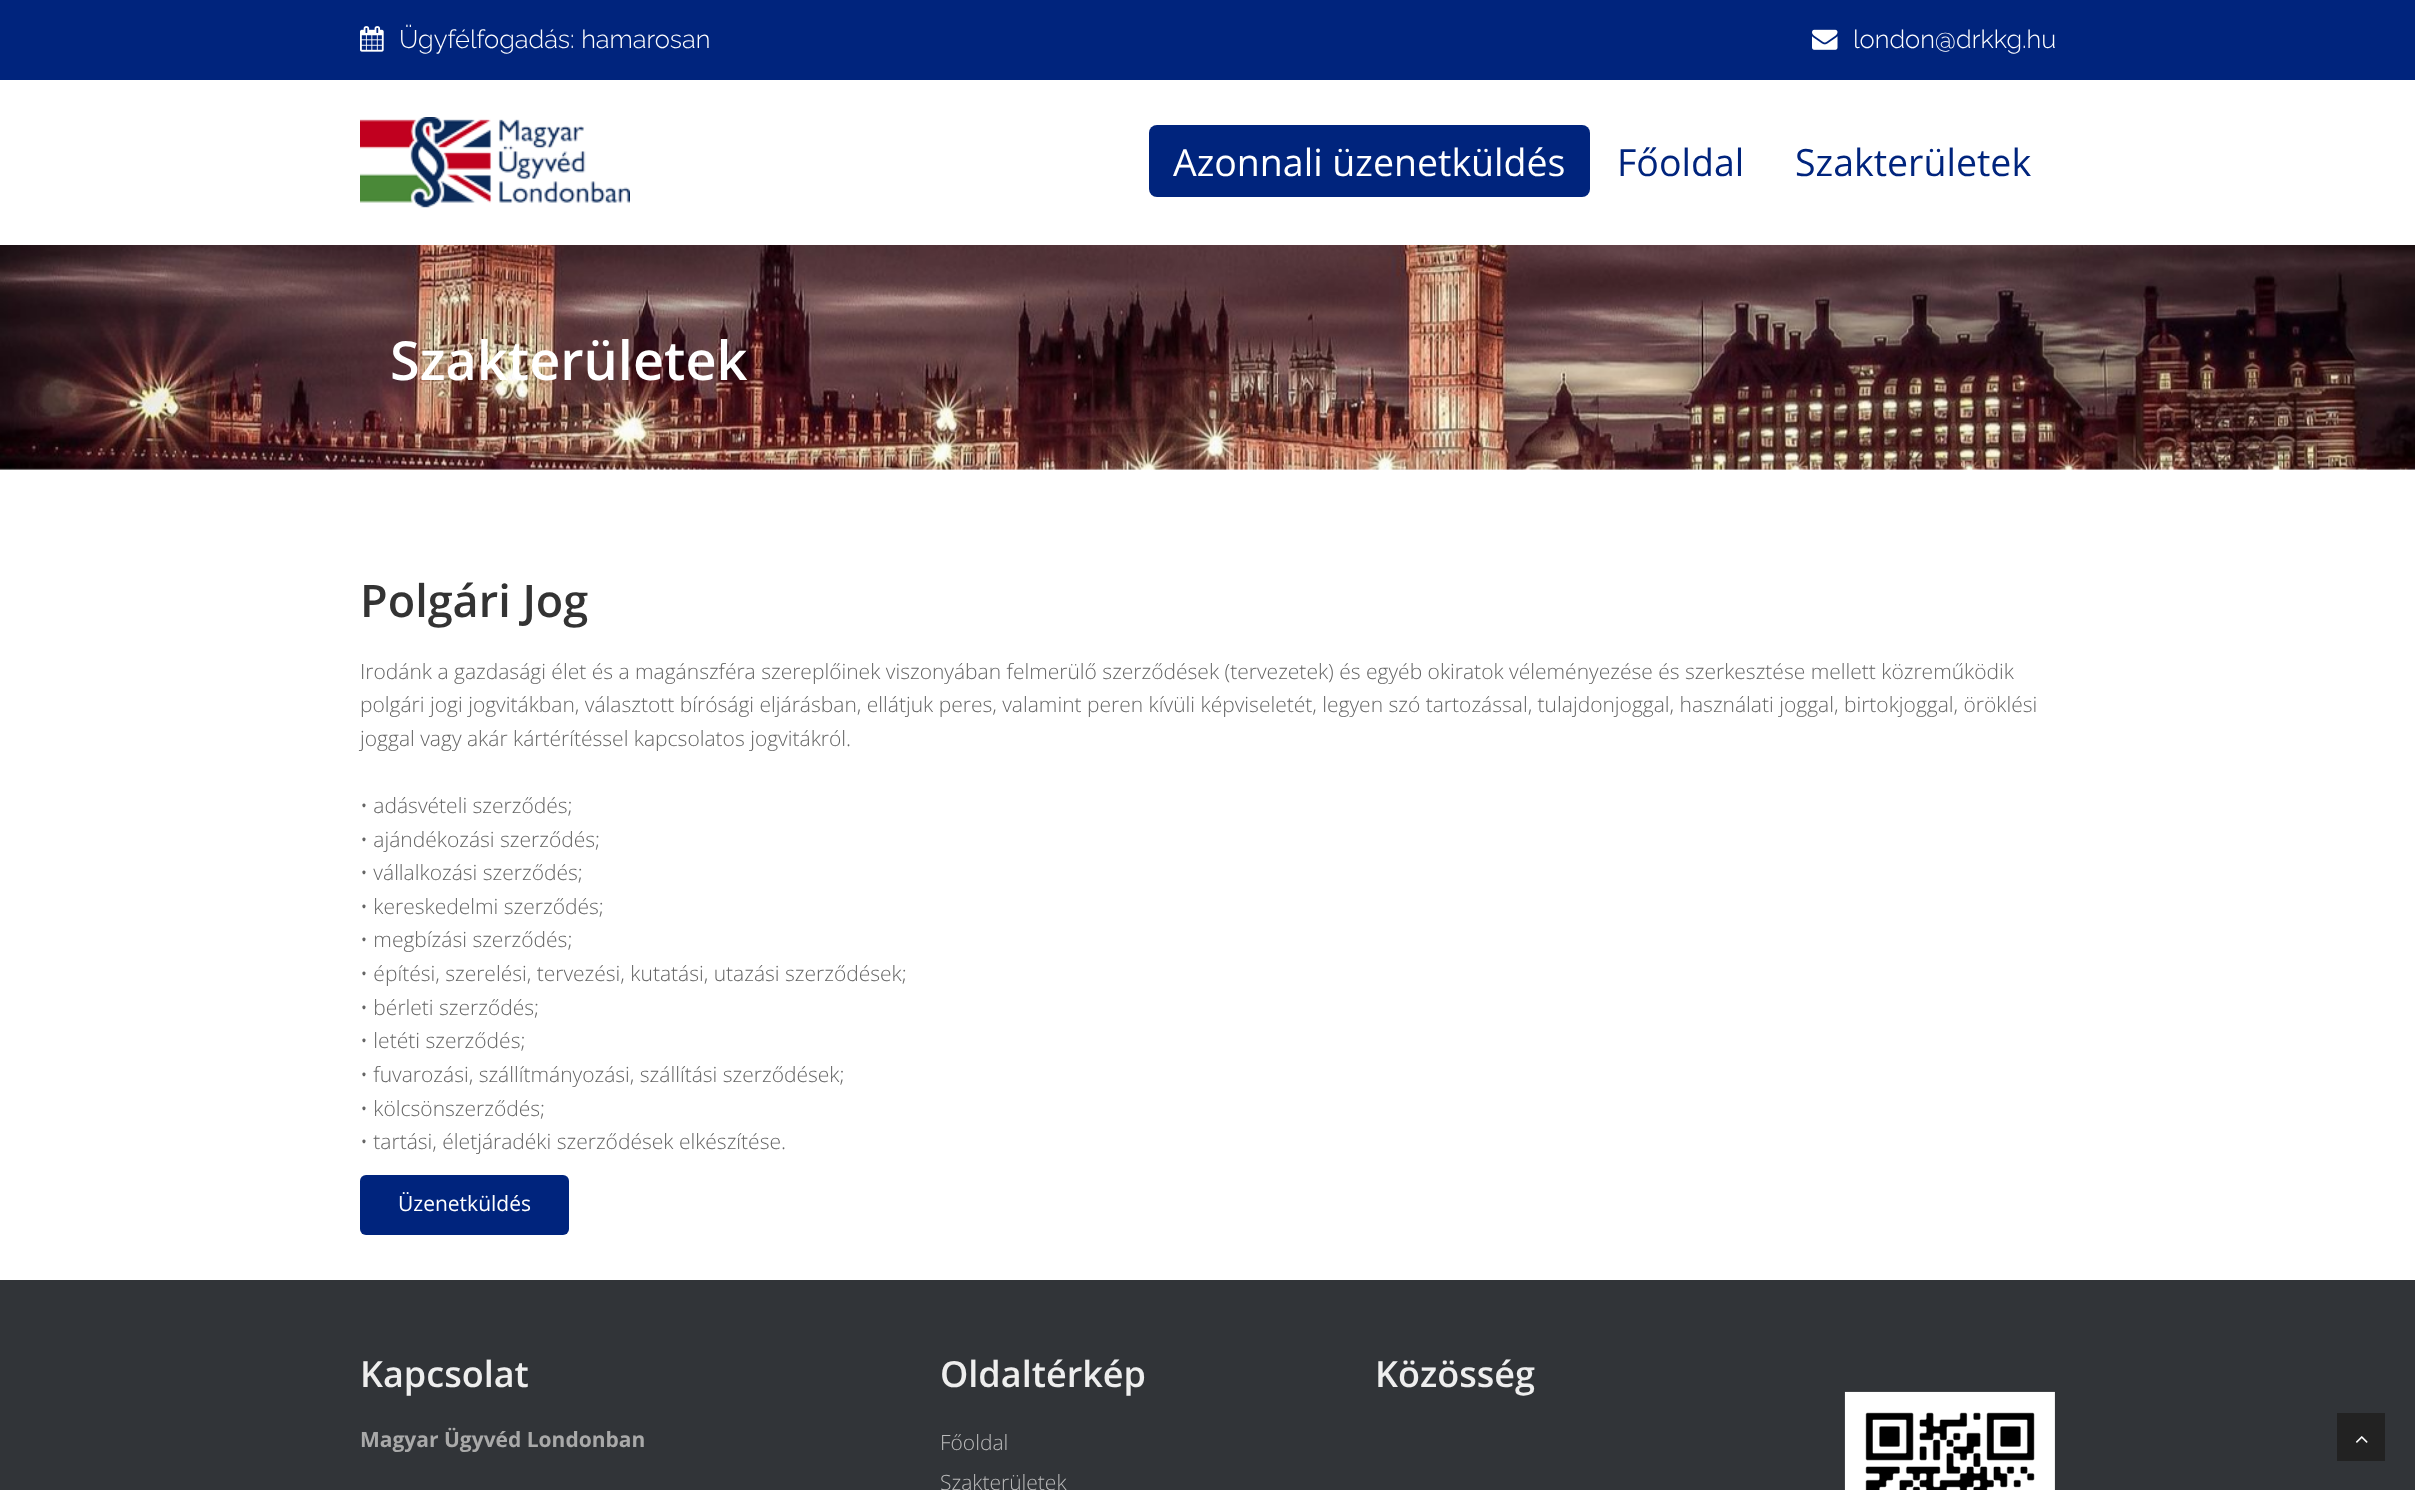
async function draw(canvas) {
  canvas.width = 2415;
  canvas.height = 1490;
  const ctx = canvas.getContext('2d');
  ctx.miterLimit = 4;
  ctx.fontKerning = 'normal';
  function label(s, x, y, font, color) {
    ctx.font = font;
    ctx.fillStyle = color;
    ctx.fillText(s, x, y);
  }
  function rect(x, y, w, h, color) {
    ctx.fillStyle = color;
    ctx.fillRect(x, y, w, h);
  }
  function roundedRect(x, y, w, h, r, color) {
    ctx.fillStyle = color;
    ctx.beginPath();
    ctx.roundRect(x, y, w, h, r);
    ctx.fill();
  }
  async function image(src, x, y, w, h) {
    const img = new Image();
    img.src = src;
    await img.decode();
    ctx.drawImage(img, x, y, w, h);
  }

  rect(0, 0, 2415, 1490, '#fff');
  rect(0, 0, 2415, 80, '#00247d');
  await image('assets/img1.png', 360, 26, 24, 26);
  label('Ügyfélfogadás: hamarosan', 399, 48, '300 25.5px Raleway', '#fff');
  await image('assets/img2.png', 1812, 29, 26, 21);
  label('london@drkkg.hu', 1853, 48, '300 25.5px Raleway', '#fff');
  await image('assets/img3.png', 360, 117, 270, 91);
  roundedRect(1149, 125, 441, 72, 8, '#00247d');
  label('Azonnali üzenetküldés', 1173, 176, '37.5px Open Sans', '#fff');
  label('Főoldal', 1617, 176, '37.5px Open Sans', '#00247d');
  label('Szakterületek', 1795, 176, '37.5px Open Sans', '#00247d');
  await image('assets/img4.png', 0, 245, 2415, 225);
  label('Szakterületek', 390, 380, '600 54px Open Sans', '#fff');
  label('Polgári Jog', 360, 617, '600 45px Open Sans', '#333');
  label('Irodánk a gazdasági élet és a magánszféra szereplőinek viszonyában felmerülő szerződések (tervezetek) és egyéb okiratok véleményezése és szerkesztése mellett közreműködik', 360, 679, '300 21px Open Sans', '#656565');
  label('polgári jogi jogvitákban, választott bírósági eljárásban, ellátjuk peres, valamint peren kívüli képviseletét, legyen szó tartozással, tulajdonjoggal, használati joggal, birtokjoggal, öröklési', 360, 712, '300 21px Open Sans', '#656565');
  label('joggal vagy akár kártérítéssel kapcsolatos jogvitákról.', 360, 746, '300 21px Open Sans', '#656565');
  label('• adásvételi szerződés;', 360, 813, '300 21px Open Sans', '#656565');
  label('• ajándékozási szerződés;', 360, 847, '300 21px Open Sans', '#656565');
  label('• vállalkozási szerződés;', 360, 880, '300 21px Open Sans', '#656565');
  label('• kereskedelmi szerződés;', 360, 914, '300 21px Open Sans', '#656565');
  label('• megbízási szerződés;', 360, 947, '300 21px Open Sans', '#656565');
  label('• építési, szerelési, tervezési, kutatási, utazási szerződések;', 360, 981, '300 21px Open Sans', '#656565');
  label('• bérleti szerződés;', 360, 1015, '300 21px Open Sans', '#656565');
  label('• letéti szerződés;', 360, 1048, '300 21px Open Sans', '#656565');
  label('• fuvarozási, szállítmányozási, szállítási szerződések;', 360, 1082, '300 21px Open Sans', '#656565');
  label('• kölcsönszerződés;', 360, 1116, '300 21px Open Sans', '#656565');
  label('• tartási, életjáradéki szerződések elkészítése.', 360, 1149, '300 21px Open Sans', '#656565');
  roundedRect(360, 1175, 209, 60, 6, '#00247d');
  label('Üzenetküldés', 398, 1211, '21px Open Sans', '#fff');
  rect(0, 1280, 2415, 210, '#313438');
  label('Kapcsolat', 360, 1387, '600 36px Open Sans', '#eee');
  label('Magyar Ügyvéd Londonban', 360, 1447, 'bold 21px Open Sans', '#a9a9a9');
  label('Oldaltérkép', 940, 1387, '600 36px Open Sans', '#eee');
  label('Főoldal', 940, 1450, '300 21px Open Sans', '#bbb');
  label('Szakterületek', 940, 1490, '300 21px Open Sans', '#bbb');
  label('Közösség', 1375, 1387, '600 36px Open Sans', '#eee');
  await image('assets/img5.png', 1844, 1391, 211, 99);
  rect(2337, 1413, 48, 48, '#222');
  await image('assets/img6.png', 2356, 1436, 12, 7);
}

draw(document.querySelector('canvas'));
